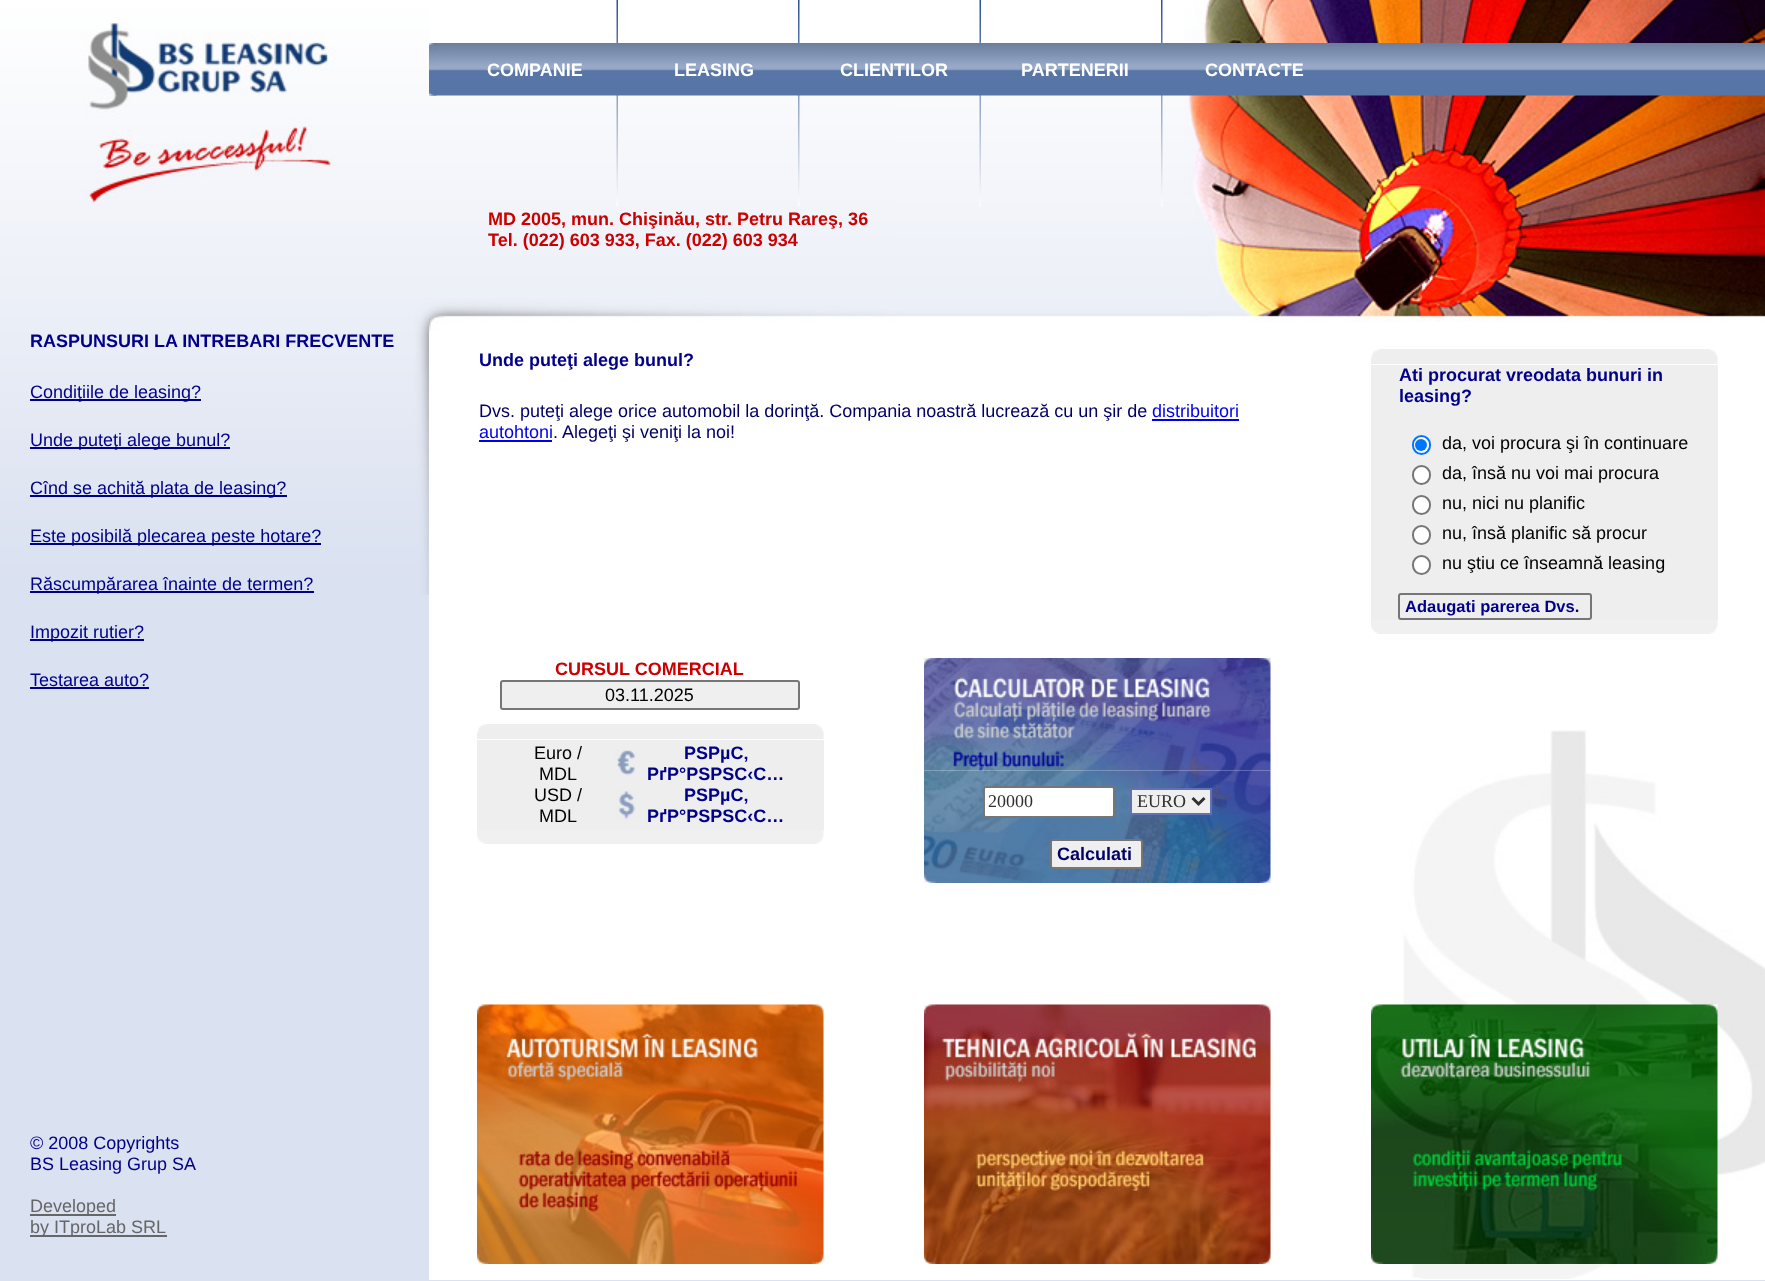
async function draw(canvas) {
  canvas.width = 1765;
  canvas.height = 1281;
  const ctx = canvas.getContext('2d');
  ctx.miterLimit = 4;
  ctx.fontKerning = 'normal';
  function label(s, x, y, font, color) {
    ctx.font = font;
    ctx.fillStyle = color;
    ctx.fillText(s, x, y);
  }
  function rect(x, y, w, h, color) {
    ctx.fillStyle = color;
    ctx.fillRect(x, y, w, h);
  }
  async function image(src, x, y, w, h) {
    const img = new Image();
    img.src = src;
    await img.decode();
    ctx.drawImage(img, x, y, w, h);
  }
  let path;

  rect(0, 0, 1765, 1281, '#dae1f0');
  rect(429, 0, 1336, 1280, '#fff');
  await image('assets/img10.png', 429, 95, 468, 237);
  await image('assets/img1.png', 616, 0, 2, 207);
  await image('assets/img2.png', 798, 0, 2, 207);
  await image('assets/img11.png', 897, 95, 287, 222);
  await image('assets/img3.png', 979, 0, 2, 207);
  await image('assets/img4.png', 1161, 0, 2, 207);
  await image('assets/img5.png', 429, 43, 15, 53);
  await image('assets/img6.png', 429, 43, 8, 53);
  await image('assets/img12.png', 1184, 0, 581, 322);
  await image('assets/img7.png', 444, 43, 1321, 53);
  label('COMPANIE', 487, 76, 'bold 18px Liberation Sans', '#fff');
  label('LEASING', 674, 76, 'bold 18px Liberation Sans', '#fff');
  label('CLIENTILOR', 840, 76, 'bold 18px Liberation Sans', '#fff');
  label('PARTENERII', 1021, 76, 'bold 18px Liberation Sans', '#fff');
  label('CONTACTE', 1205, 76, 'bold 18px Liberation Sans', '#fff');
  label('MD 2005, mun. Chişinău, str. Petru Rareş, 36', 488, 225, 'bold 18px Liberation Sans', '#c00');
  label('Tel. (022) 603 933, Fax. (022) 603 934', 488, 246, 'bold 18px Liberation Sans', '#c00');
  await image('assets/img8.png', 1403, 730, 362, 549);
  await image('assets/img9.png', 0, 0, 429, 595);
  label('RASPUNSURI LA INTREBARI FRECVENTE', 30, 347, 'bold 18px Liberation Sans', '#00008b');
  rect(30, 399, 171, 2, '#00008b');
  label('Condiţiile de leasing?', 30, 398, '18px Liberation Sans', '#00008b');
  rect(30, 447, 200, 2, '#00008b');
  label('Unde puteţi alege bunul?', 30, 446, '18px Liberation Sans', '#00008b');
  rect(30, 495, 257, 2, '#00008b');
  label('Cînd se achită plata de leasing?', 30, 494, '18px Liberation Sans', '#00008b');
  rect(30, 543, 291, 2, '#00008b');
  label('Este posibilă plecarea peste hotare?', 30, 542, '18px Liberation Sans', '#00008b');
  rect(30, 591, 284, 2, '#00008b');
  label('Răscumpărarea înainte de termen?', 30, 590, '18px Liberation Sans', '#00008b');
  rect(30, 639, 114, 2, '#00008b');
  label('Impozit rutier?', 30, 638, '18px Liberation Sans', '#00008b');
  label('Testarea auto?', 30, 686, '18px Liberation Sans', '#00008b');
  rect(30, 687, 119, 2, '#00008b');
  label('Unde puteţi alege bunul?', 479, 366, 'bold 18px Liberation Sans', '#00008b');
  label('Dvs. puteţi alege orice automobil la dorinţă. Compania noastră lucrează cu un şir de', 479, 417, '18px Liberation Sans', '#006');
  label('distribuitori', 1152, 417, '18px Liberation Sans', '#00e');
  rect(1152, 419, 87, 2, '#00e');
  label('autohtoni', 479, 438, '18px Liberation Sans', '#00e');
  label('. Alegeţi şi veniţi la noi!', 553, 438, '18px Liberation Sans', '#006');
  rect(479, 440, 73, 2, '#00e');
  await image('assets/img13.png', 1371, 349, 347, 15);
  rect(1371, 365, 347, 255, '#eee');
  label('Ati procurat vreodata bunuri in', 1399, 381, 'bold 18px Liberation Sans', '#00008b');
  label('leasing?', 1399, 402, 'bold 18px Liberation Sans', '#00008b');
  ctx.fillStyle = '#fff';
  ctx.beginPath();
  ctx.roundRect(1413, 436, 17, 18, 8.5);
  ctx.fill();
  ctx.strokeStyle = '#0075ff';
  ctx.lineWidth = 2;
  ctx.stroke();
  ctx.fillStyle = '#0075ff';
  ctx.beginPath();
  ctx.arc(1421, 445, 6, 0, 2 * Math.PI);
  ctx.fill();
  label('da, voi procura şi în continuare', 1442, 449, '18px Liberation Sans', '#000');
  ctx.fillStyle = '#fff';
  ctx.beginPath();
  ctx.roundRect(1413, 466, 17, 18, 8.5);
  ctx.fill();
  ctx.strokeStyle = '#767676';
  ctx.stroke();
  label('da, însă nu voi mai procura', 1442, 479, '18px Liberation Sans', '#000');
  ctx.fillStyle = '#fff';
  ctx.beginPath();
  ctx.roundRect(1413, 496, 17, 18, 8.5);
  ctx.fill();
  ctx.stroke();
  label('nu, nici nu planific', 1442, 509, '18px Liberation Sans', '#000');
  ctx.fillStyle = '#fff';
  ctx.beginPath();
  ctx.roundRect(1413, 526, 17, 18, 8.5);
  ctx.fill();
  ctx.stroke();
  label('nu, însă planific să procur', 1442, 539, '18px Liberation Sans', '#000');
  ctx.fillStyle = '#fff';
  ctx.beginPath();
  ctx.roundRect(1413, 556, 17, 18, 8.5);
  ctx.fill();
  ctx.stroke();
  label('nu ştiu ce înseamnă leasing', 1442, 569, '18px Liberation Sans', '#000');
  ctx.beginPath();
  ctx.roundRect(1399, 594, 192, 25, 2);
  ctx.stroke();
  label('Adaugati parerea Dvs.', 1405, 612, 'bold 16.5px Liberation Sans', '#00008b');
  await image('assets/img14.png', 1371, 620, 347, 14);
  label('CURSUL COMERCIAL', 555, 675, 'bold 18px Liberation Sans', '#c00');
  ctx.fillStyle = '#efefef';
  ctx.beginPath();
  ctx.roundRect(501, 681, 298, 28, 2);
  ctx.fill();
  ctx.stroke();
  label('03.11.2025', 605, 701, '18px Liberation Sans', '#000');
  await image('assets/img15.png', 477, 724, 347, 15);
  rect(477, 740, 347, 90, '#eee');
  label('Euro /', 534, 759, '18px Liberation Sans', '#000');
  label('MDL', 539, 780, '18px Liberation Sans', '#000');
  await image('assets/img16.png', 614, 748, 23, 28);
  label('РЅРµС‚', 684, 759, 'bold 18px Liberation Sans', '#00008b');
  label('РґР°РЅРЅС‹С…', 647, 780, 'bold 18px Liberation Sans', '#00008b');
  label('USD /', 534, 801, '18px Liberation Sans', '#000');
  label('MDL', 539, 822, '18px Liberation Sans', '#000');
  await image('assets/img17.png', 614, 790, 23, 30);
  label('РЅРµС‚', 684, 801, 'bold 18px Liberation Sans', '#00008b');
  label('РґР°РЅРЅС‹С…', 647, 822, 'bold 18px Liberation Sans', '#00008b');
  await image('assets/img18.png', 477, 830, 347, 14);
  await image('assets/img20.png', 924, 770, 347, 113);
  await image('assets/img19.png', 924, 658, 347, 113);
  ctx.fillStyle = '#fff';
  ctx.beginPath();
  ctx.roundRect(984, 787, 130, 30, 2);
  ctx.fill();
  ctx.stroke();
  label('20000', 988, 807, '18px Liberation Serif', '#303030');
  ctx.fillStyle = '#efefef';
  ctx.beginPath();
  ctx.rect(1131, 789, 80, 25);
  ctx.fill();
  ctx.strokeStyle = '#6371b0';
  ctx.stroke();
  path = new Path2D('M1192.5 798L1198.5 804L1204.5 798');
  ctx.strokeStyle = '#303030';
  ctx.lineWidth = 3;
  ctx.stroke(path);
  label('EURO', 1137, 807, '18px Liberation Serif', '#303030');
  ctx.fillStyle = '#efefef';
  ctx.beginPath();
  ctx.roundRect(1051, 840, 91, 28, 2);
  ctx.fill();
  ctx.strokeStyle = '#767676';
  ctx.lineWidth = 2;
  ctx.stroke();
  label('Calculati', 1057, 860, 'bold 18px Liberation Sans', '#006');
  label('© 2008 Copyrights', 30, 1149, '18px Liberation Sans', '#00008b');
  label('BS Leasing Grup SA', 30, 1170, '18px Liberation Sans', '#00008b');
  rect(30, 1214, 86, 2, '#666');
  label('Developed', 30, 1212, '18px Liberation Sans', '#666');
  rect(30, 1235, 137, 2, '#666');
  label('by ITproLab SRL', 30, 1233, '18px Liberation Sans', '#666');
  await image('assets/img21.png', 477, 1004, 347, 260);
  await image('assets/img22.png', 924, 1004, 347, 260);
  await image('assets/img23.png', 1371, 1004, 347, 260);
}

draw(document.querySelector('canvas'));
